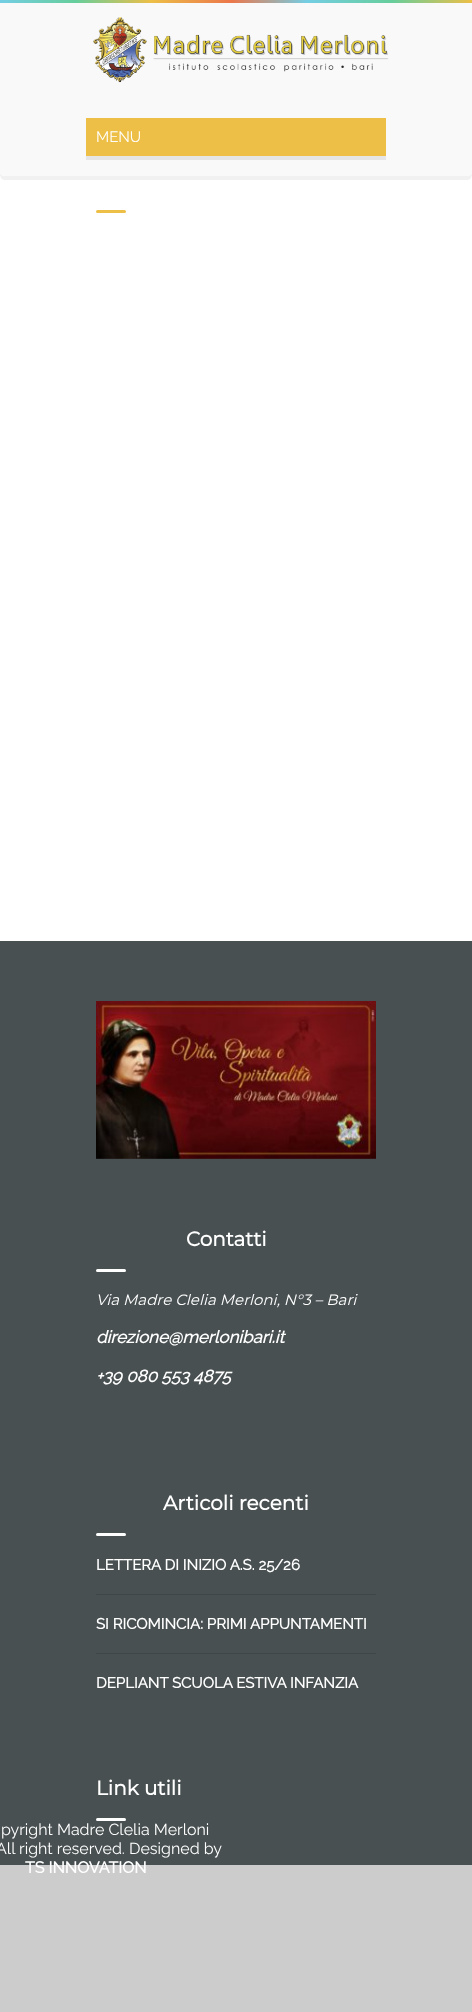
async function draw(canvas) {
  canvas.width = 472;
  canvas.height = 2012;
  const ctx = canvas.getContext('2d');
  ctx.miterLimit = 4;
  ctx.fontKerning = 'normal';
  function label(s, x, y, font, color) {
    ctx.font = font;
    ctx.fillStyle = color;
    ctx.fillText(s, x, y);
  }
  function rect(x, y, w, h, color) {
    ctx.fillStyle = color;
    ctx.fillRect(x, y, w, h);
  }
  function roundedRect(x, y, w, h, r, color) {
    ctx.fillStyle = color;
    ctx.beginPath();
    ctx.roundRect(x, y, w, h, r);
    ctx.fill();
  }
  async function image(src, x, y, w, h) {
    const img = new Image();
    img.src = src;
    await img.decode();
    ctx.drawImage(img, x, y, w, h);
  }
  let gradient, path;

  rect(0, 0, 472, 2012, '#ccc');
  rect(0, 171, 472, 770, '#fff');
  gradient = ctx.createLinearGradient(0, 1.5, 472, 1.5);
  gradient.addColorStop(0, '#74cee4');
  gradient.addColorStop(0.16, '#66ce9c');
  gradient.addColorStop(0.32, '#edbf47');
  gradient.addColorStop(0.49, '#ec774b');
  gradient.addColorStop(0.65, '#74cee4');
  gradient.addColorStop(0.83, '#66ce9c');
  gradient.addColorStop(1, '#edbf47');
  ctx.fillStyle = gradient;
  ctx.fillRect(0, 0, 472, 3);
  ctx.fillStyle = '#f1f1f1';
  path = new Path2D('M0 171C0 175 0 180 5 180H467C472 180 472 175 472 171C472 174 470 176 467 176H5C2 176 0 174 0 171Z');
  ctx.fill(path);
  ctx.fillStyle = '#f9f9f9';
  ctx.beginPath();
  ctx.roundRect(0, 3, 472, 173, [0, 0, 5, 5]);
  ctx.fill();
  await image('assets/img1.png', 93, 17, 296, 66);
  rect(86, 156, 300, 4, '#e5e5e5');
  rect(86, 118, 300, 38, '#edbf47');
  label('MENU', 96, 142, '100 15px Raleway', '#fff');
  roundedRect(96, 210, 30, 3, 1.5, '#edbf47');
  rect(0, 941, 472, 924, '#495052');
  await image('assets/img2.png', 96, 1001, 280, 158);
  label('Contatti', 186, 1246, 'bold 20px Montserrat', '#fff');
  roundedRect(96, 1269, 30, 3, 1.5, '#fff');
  label('Via Madre Clelia Merloni, N°3 – Bari', 96, 1305, 'italic 100 15px Montserrat', '#fff');
  label('direzione@merlonibari.it', 96, 1343, 'italic bold 17px Raleway', '#fff');
  label('+39 080 553 4875', 96, 1382, 'italic bold 17px Raleway', '#fff');
  label('Articoli recenti', 163, 1510, 'bold 20px Montserrat', '#fff');
  roundedRect(96, 1533, 30, 3, 1.5, '#fff');
  rect(96, 1594, 280, 1, '#404547');
  label('LETTERA DI INIZIO A.S. 25/26', 96, 1570, 'bold 15px Raleway', '#fff');
  rect(96, 1653, 280, 1, '#404547');
  label('SI RICOMINCIA: PRIMI APPUNTAMENTI', 96, 1629, 'bold 15px Raleway', '#fff');
  label('DEPLIANT SCUOLA ESTIVA INFANZIA', 96, 1688, 'bold 15px Raleway', '#fff');
  label('Link utili', 96, 1795, 'bold 20px Montserrat', '#fff');
  roundedRect(96, 1818, 30, 3, 1.5, '#fff');
  label('pyright Madre Clelia Merloni', 1, 1835, '100 16px Raleway', '#fff');
  label('All right reserved. Designed by', -4, 1854, '100 16px Raleway', '#fff');
  label('TS INNOVATION', 25, 1873, 'bold 16px Raleway', '#fff');
}

draw(document.querySelector('canvas'));
